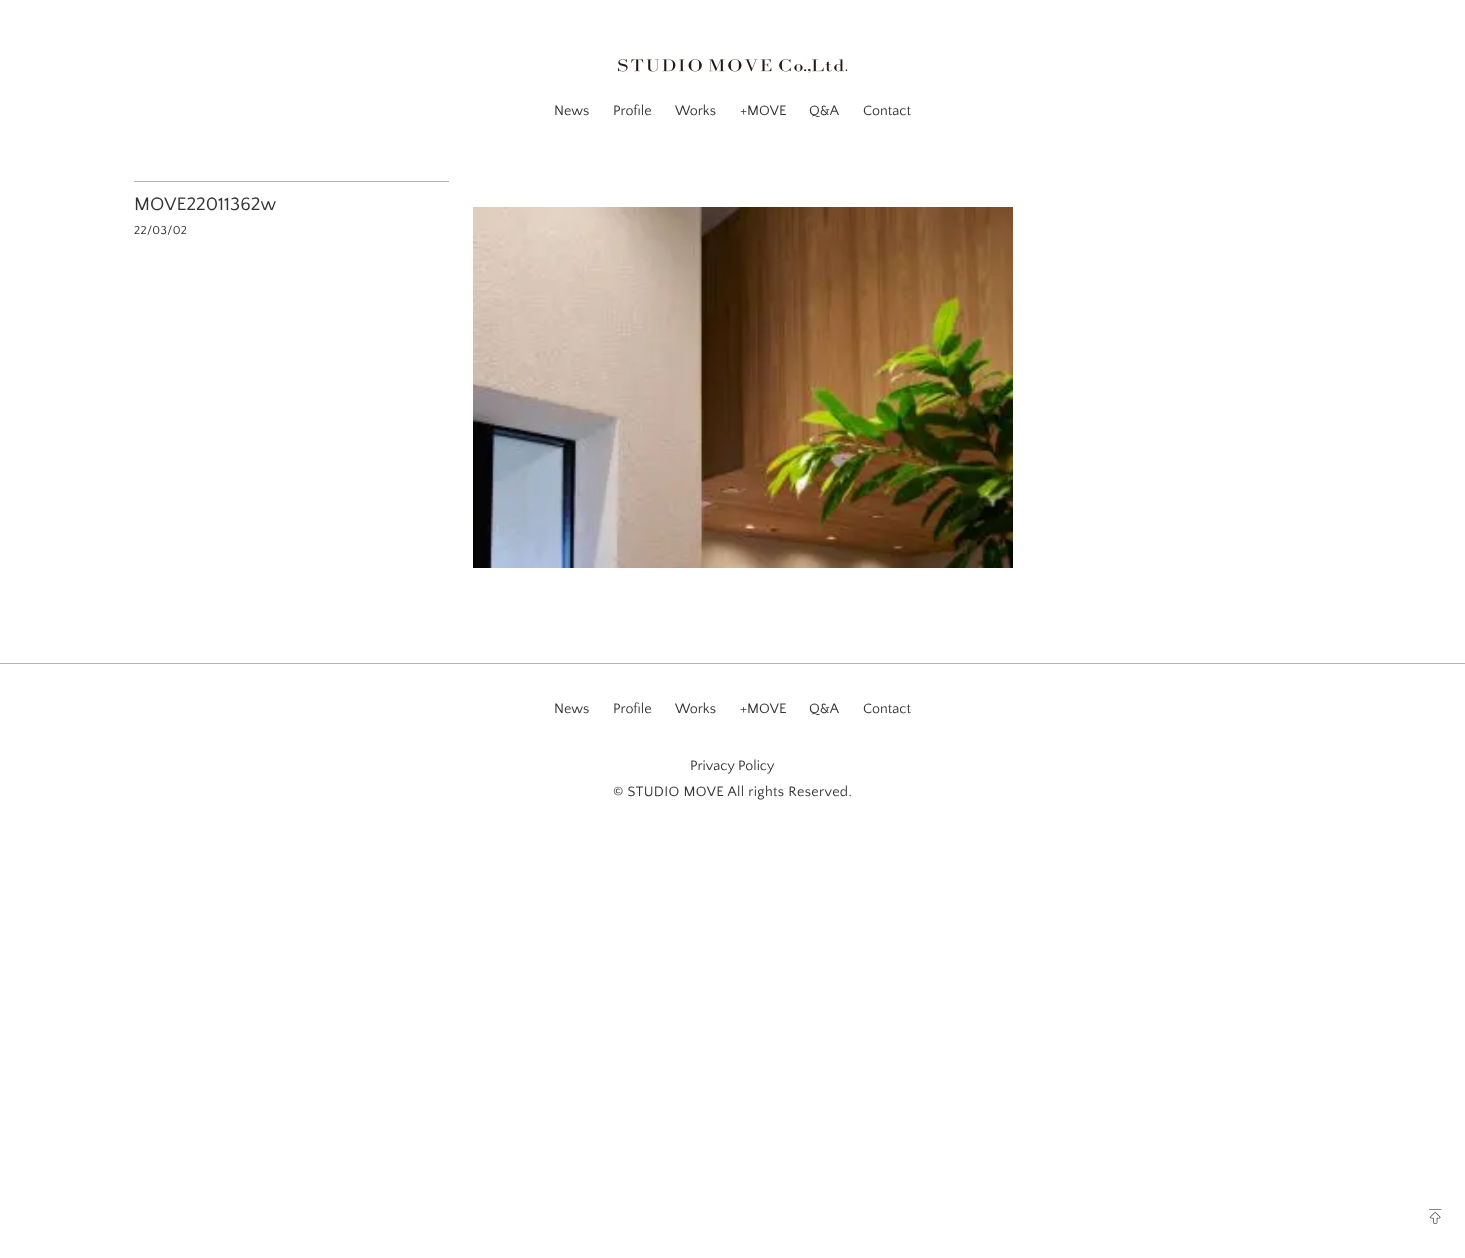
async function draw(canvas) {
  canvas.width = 1465;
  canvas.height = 1258;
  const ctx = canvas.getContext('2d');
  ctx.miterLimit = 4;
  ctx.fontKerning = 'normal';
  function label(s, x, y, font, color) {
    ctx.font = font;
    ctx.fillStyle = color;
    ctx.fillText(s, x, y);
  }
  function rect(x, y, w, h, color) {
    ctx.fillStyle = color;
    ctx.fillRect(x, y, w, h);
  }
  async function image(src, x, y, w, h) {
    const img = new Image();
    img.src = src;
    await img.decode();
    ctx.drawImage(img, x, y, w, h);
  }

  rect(0, 0, 1465, 1258, '#fff');
  await image('assets/img1.png', 618, 59, 229, 14);
  label('News', 554, 115, '14.25px Quattrocento Sans', '#333');
  label('Profile', 613, 115, '14.25px Quattrocento Sans', '#333');
  label('Works', 675, 115, '14.25px Quattrocento Sans', '#333');
  label('+MOVE', 740, 115, '14.25px Quattrocento Sans', '#333');
  label('Q&A', 809, 115, '14.25px Quattrocento Sans', '#333');
  label('Contact', 863, 115, '14.25px Quattrocento Sans', '#333');
  rect(134, 181, 315, 1, '#b3b3bc');
  label('MOVE22011362w', 134, 210, '19px Quattrocento Sans', '#333');
  ctx.letterSpacing = '0.35px';
  label('22/03/02', 134, 234, '12px Quattrocento Sans', '#333');
  await image('assets/img2.png', 473, 207, 540, 361);
  rect(0, 663, 1465, 1, '#b3b3bc');
  ctx.letterSpacing = '0px';
  label('News', 554, 713, '14.25px Quattrocento Sans', '#333');
  label('Profile', 613, 713, '14.25px Quattrocento Sans', '#333');
  label('Works', 675, 713, '14.25px Quattrocento Sans', '#333');
  label('+MOVE', 740, 713, '14.25px Quattrocento Sans', '#333');
  label('Q&A', 809, 713, '14.25px Quattrocento Sans', '#333');
  label('Contact', 863, 713, '14.25px Quattrocento Sans', '#333');
  label('Privacy Policy', 690, 770, '14.25px Quattrocento Sans', '#333');
  ctx.letterSpacing = '0.35px';
  label('© STUDIO MOVE All rights Reserved.', 613, 796, '14.25px Quattrocento Sans', '#333');
  await image('assets/img3.png', 1429, 1209, 13, 15);
}

draw(document.querySelector('canvas'));
